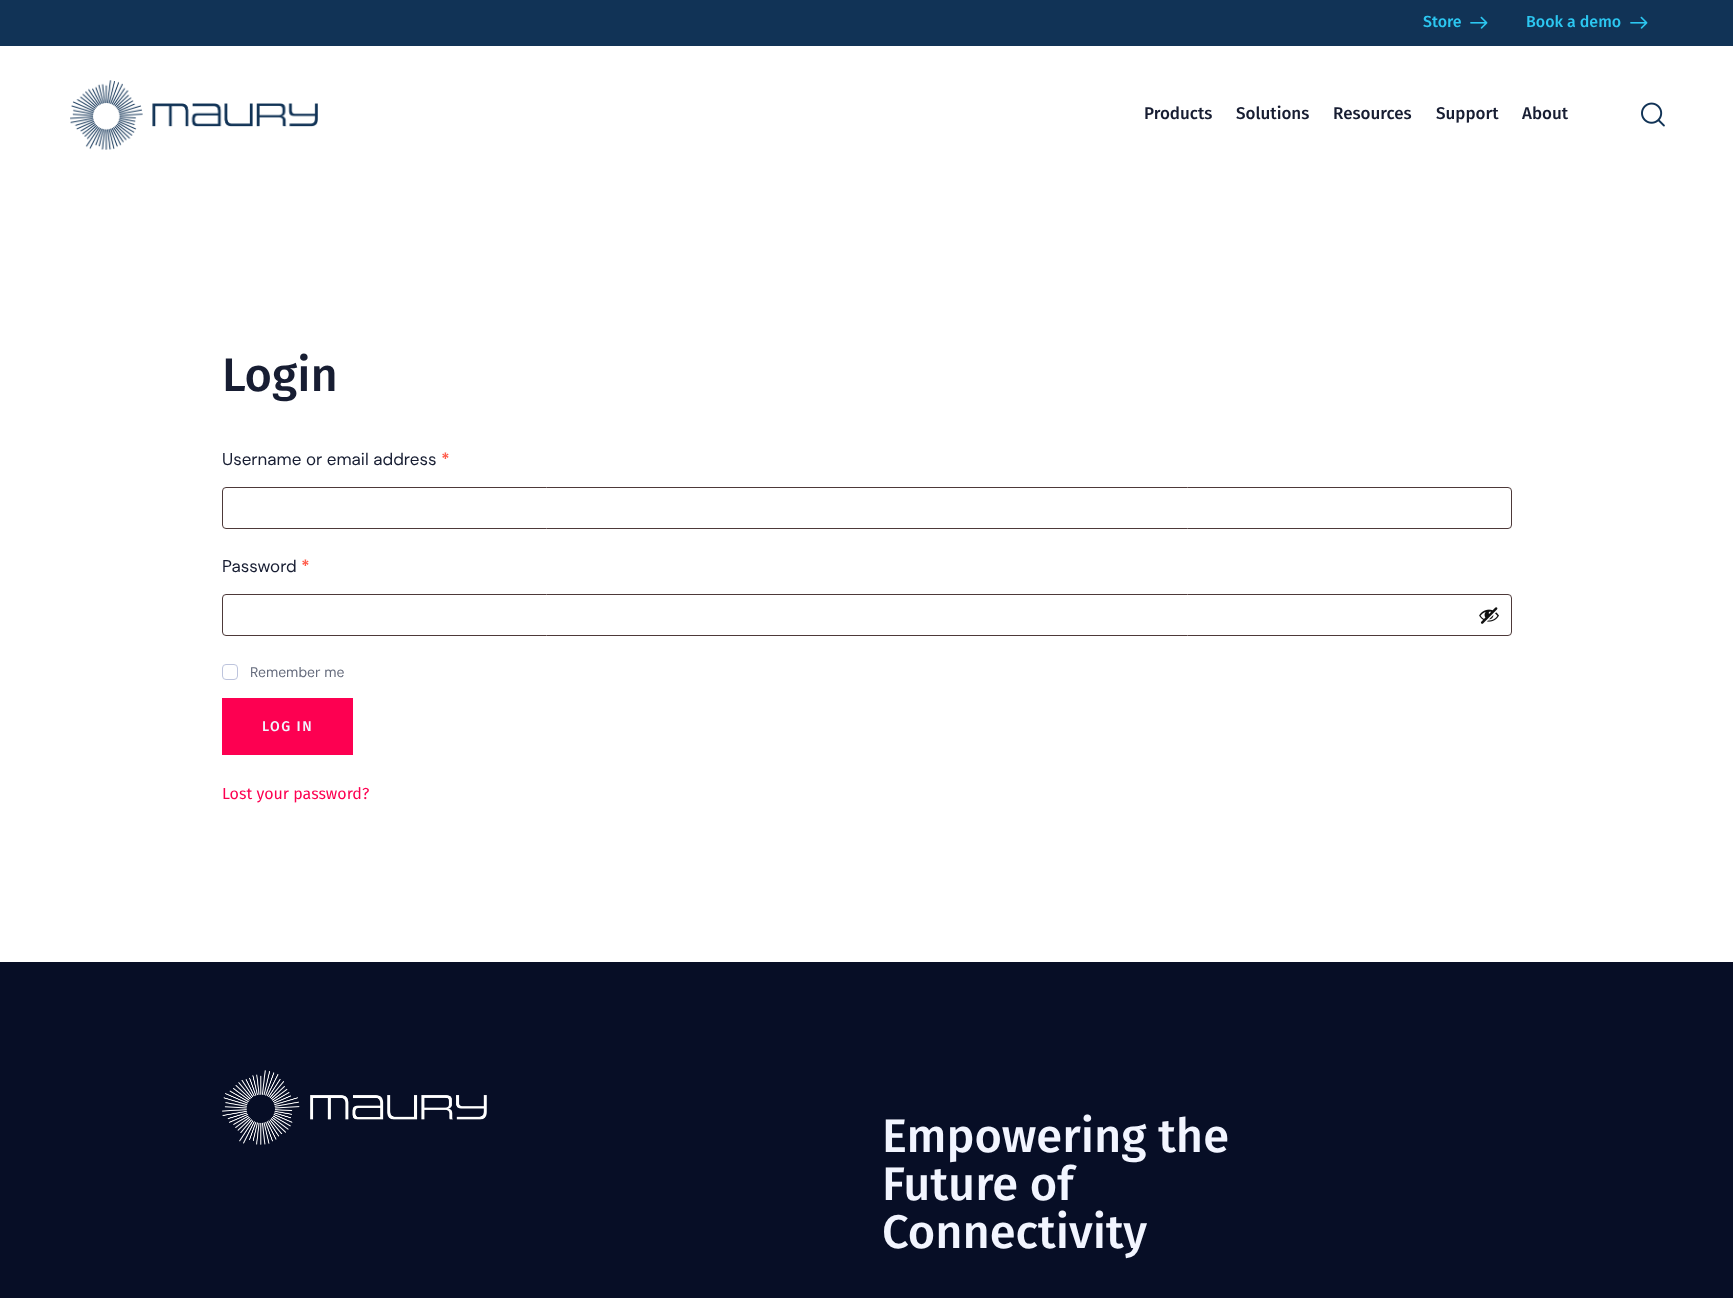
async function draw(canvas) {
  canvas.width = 1733;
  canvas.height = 1298;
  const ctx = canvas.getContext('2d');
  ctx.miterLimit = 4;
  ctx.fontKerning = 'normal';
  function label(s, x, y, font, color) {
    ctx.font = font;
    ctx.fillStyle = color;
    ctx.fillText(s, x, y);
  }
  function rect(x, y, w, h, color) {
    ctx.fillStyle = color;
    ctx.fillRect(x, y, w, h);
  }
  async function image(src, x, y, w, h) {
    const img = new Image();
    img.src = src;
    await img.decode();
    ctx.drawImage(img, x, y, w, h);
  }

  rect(0, 0, 1733, 1298, '#fff');
  rect(0, 0, 1733, 46, '#113356');
  label('Store', 1423, 27, '500 16px Fira Sans', '#2cc7f1');
  await image('assets/img1.png', 1470, 16, 18, 13);
  label('Book a demo', 1526, 27, '500 16px Fira Sans', '#2cc7f1');
  await image('assets/img1.png', 1630, 16, 18, 13);
  await image('assets/img2.png', 70, 80, 248, 70);
  label('Products', 1144, 119, '500 17px Fira Sans', '#171d32');
  label('Solutions', 1236, 119, '500 17px Fira Sans', '#171d32');
  label('Resources', 1333, 119, '500 17px Fira Sans', '#171d32');
  label('Support', 1436, 119, '500 17px Fira Sans', '#171d32');
  label('About', 1522, 119, '500 17px Fira Sans', '#171d32');
  await image('assets/img3.png', 1641, 102, 24, 25);
  label('Login', 222, 391, '500 47px Fira Sans', '#171d32');
  label('Username or email address', 222, 465, '17px DM Sans', '#171d32');
  label('*', 441, 465, 'bold 17px DM Sans', '#ff5b4a');
  ctx.beginPath();
  ctx.roundRect(222.5, 487.5, 1289, 41, 3.5);
  ctx.strokeStyle = '#4d3939';
  ctx.stroke();
  label('Password', 222, 572, '17px DM Sans', '#171d32');
  label('*', 301, 572, 'bold 17px DM Sans', '#ff5b4a');
  ctx.beginPath();
  ctx.roundRect(222.5, 594.5, 1289, 41, 3.5);
  ctx.stroke();
  await image('assets/img4.png', 1479, 607, 20, 17);
  ctx.beginPath();
  ctx.roundRect(222.5, 664.5, 15, 15, 3.5);
  ctx.strokeStyle = '#bdc4dd';
  ctx.stroke();
  label('Remember me', 250, 677, '14px "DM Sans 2"', '#656b7c');
  rect(222, 698, 131, 57, '#fd0051');
  ctx.letterSpacing = '1.5px';
  label('LOG IN', 262, 731, '500 14px Fira Sans', '#f2f5ff');
  ctx.letterSpacing = '0px';
  label('Lost your password?', 222, 799, '16px Fira Sans', '#fd0051');
  rect(0, 962, 1733, 336, '#070e26');
  await image('assets/img5.png', 222, 1070, 265, 75);
  label('Empowering the', 882, 1152, '500 47px Fira Sans', '#f2f5ff');
  label('Future of', 882, 1200, '500 47px Fira Sans', '#f2f5ff');
  label('Connectivity', 882, 1248, '500 47px Fira Sans', '#f2f5ff');
}

draw(document.querySelector('canvas'));
